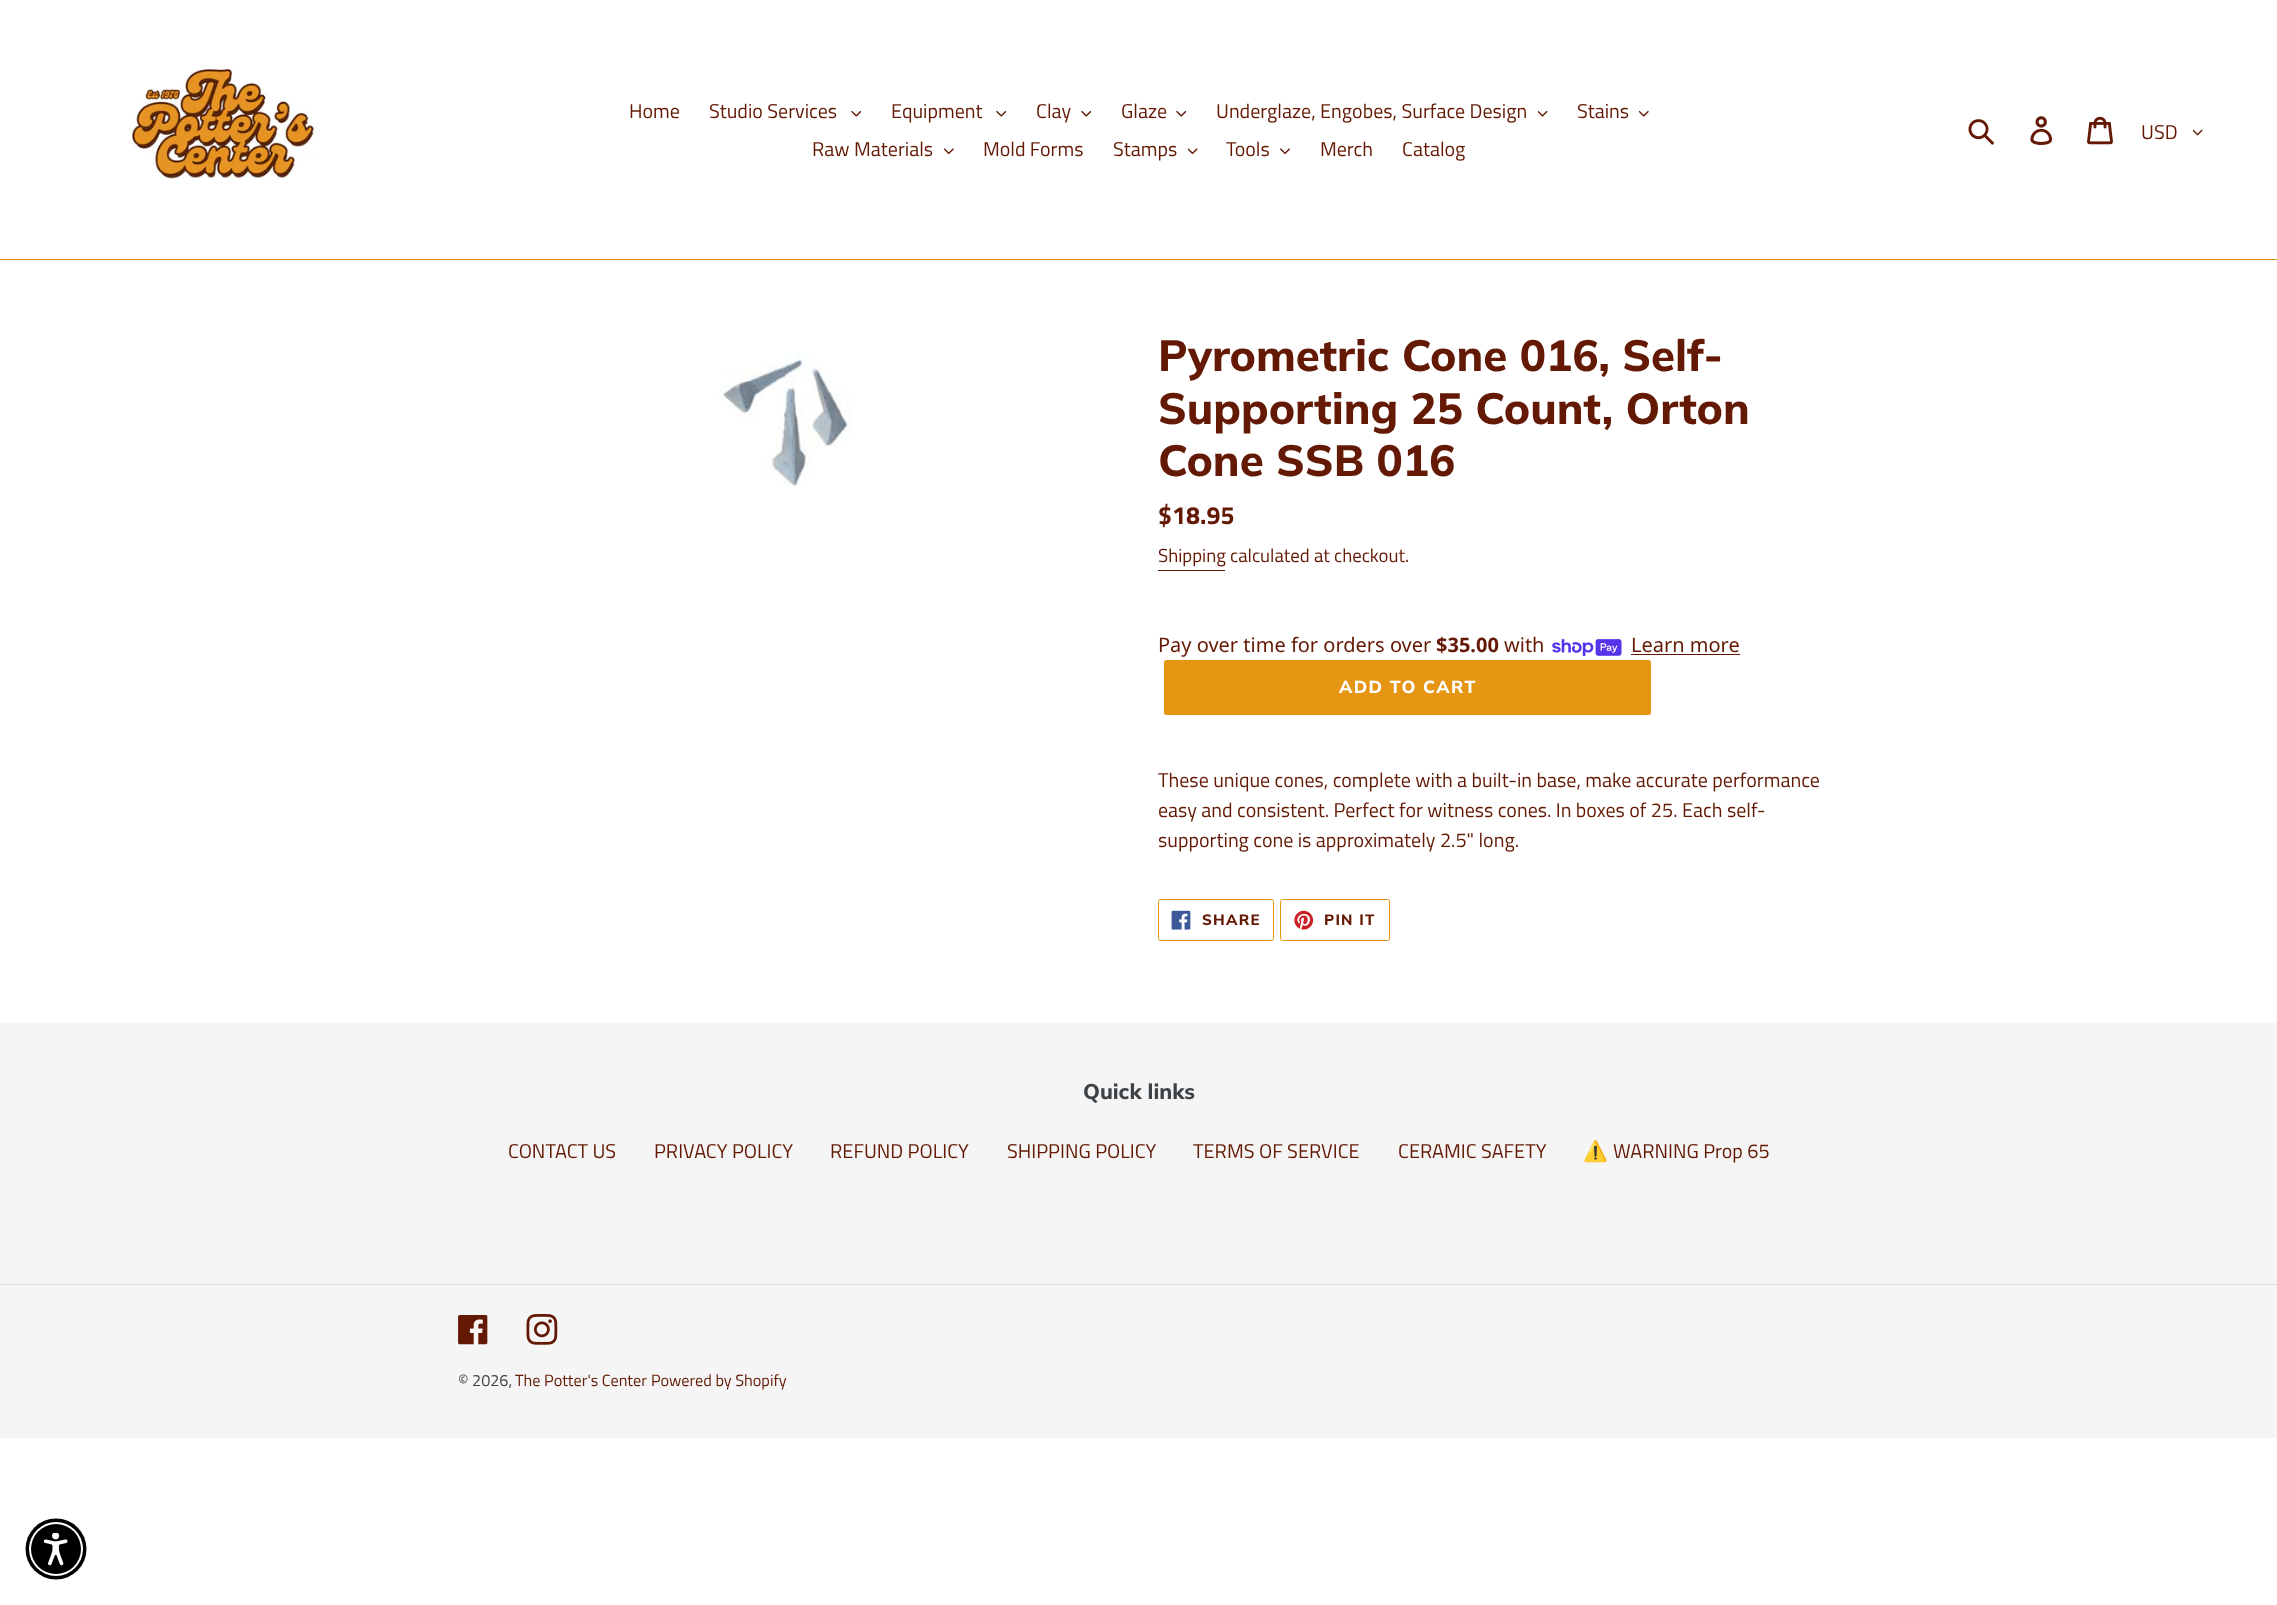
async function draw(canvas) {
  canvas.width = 2277;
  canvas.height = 1605;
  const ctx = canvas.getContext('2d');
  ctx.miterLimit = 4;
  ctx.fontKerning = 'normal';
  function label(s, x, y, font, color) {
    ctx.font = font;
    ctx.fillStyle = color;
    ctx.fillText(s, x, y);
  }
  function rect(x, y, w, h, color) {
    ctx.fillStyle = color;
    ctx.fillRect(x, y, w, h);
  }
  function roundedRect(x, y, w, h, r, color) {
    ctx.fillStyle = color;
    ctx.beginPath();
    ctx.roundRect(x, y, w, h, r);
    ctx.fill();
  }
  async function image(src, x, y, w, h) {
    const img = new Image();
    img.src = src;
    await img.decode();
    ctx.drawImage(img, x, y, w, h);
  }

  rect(0, 0, 2277, 1605, '#fff');
  rect(0, 259, 2277, 1, '#e59512');
  await image('assets/img1.png', 131, 67, 188, 112);
  label('Home', 629, 118, '20px Titillium Web', '#631904');
  label('Studio Services', 709, 118, '20px Titillium Web', '#631904');
  await image('assets/img2.png', 851, 110, 10, 7);
  label('Equipment', 891, 118, '20px Titillium Web', '#631904');
  await image('assets/img2.png', 996, 110, 10, 7);
  label('Clay', 1036, 118, '20px Titillium Web', '#631904');
  await image('assets/img2.png', 1081, 110, 10, 7);
  label('Glaze', 1121, 118, '20px Titillium Web', '#631904');
  await image('assets/img2.png', 1176, 110, 10, 7);
  label('Underglaze, Engobes, Surface Design', 1216, 118, '20px Titillium Web', '#631904');
  await image('assets/img3.png', 1538, 110, 10, 7);
  label('Stains', 1577, 118, '20px Titillium Web', '#631904');
  await image('assets/img4.png', 1639, 110, 10, 7);
  label('Raw Materials', 812, 156, '20px Titillium Web', '#631904');
  await image('assets/img5.png', 944, 148, 10, 7);
  label('Mold Forms', 983, 156, '20px Titillium Web', '#631904');
  label('Stamps', 1113, 156, '20px Titillium Web', '#631904');
  await image('assets/img6.png', 1188, 148, 10, 7);
  label('Tools', 1226, 156, '20px Titillium Web', '#631904');
  await image('assets/img7.png', 1280, 148, 10, 6);
  label('Merch', 1320, 156, '20px Titillium Web', '#631904');
  label('Catalog', 1402, 156, '20px Titillium Web', '#631904');
  await image('assets/img8.png', 1968, 119, 26, 26);
  await image('assets/img9.png', 2030, 116, 23, 29);
  await image('assets/img10.png', 2087, 116, 26, 29);
  label('USD', 2141, 139, '20px Titillium Web', '#631904');
  await image('assets/img11.png', 2193, 129, 10, 7);
  await image('assets/img12.png', 719, 353, 132, 133);
  label('Pyrometric Cone 016, Self-', 1158, 371, '800 43.75px Muli', '#631904');
  label('Supporting 25 Count, Orton', 1158, 424, '800 43.75px Muli', '#631904');
  label('Cone SSB 016', 1158, 476, '800 43.75px Muli', '#631904');
  label('$18.95', 1158, 524, 'bold 25px Titillium Web', '#631904');
  label('Shipping calculated at checkout.', 1158, 562, '18.75px Titillium Web', '#631904');
  rect(1158, 570, 67, 1, '#631904');
  label('Pay over time for orders over', 1158, 652, '20px Noto Sans', '#631904');
  label('$35.00', 1436, 652, 'bold 20px Noto Sans', '#631904');
  label('with', 1504, 652, '20px Noto Sans', '#631904');
  await image('assets/img13.png', 1552, 639, 70, 17);
  label('Learn more', 1631, 652, '20px Noto Sans', '#631904');
  rect(1631, 654, 109, 1, '#631904');
  roundedRect(1164, 660, 487, 55, 2.5, '#e59512');
  ctx.letterSpacing = '1.4px';
  label('ADD TO CART', 1339, 693, '800 17.5px Muli', '#fff');
  ctx.letterSpacing = '0px';
  label('These unique cones, complete with a built-in base, make accurate performance', 1158, 787, '20px Titillium Web', '#631904');
  label('easy and consistent. Perfect for witness cones. In boxes of 25. Each self-', 1158, 817, '20px Titillium Web', '#631904');
  label('supporting cone is approximately 2.5" long.', 1158, 847, '20px Titillium Web', '#631904');
  ctx.beginPath();
  ctx.roundRect(1158.5, 899.5, 115, 41, 2);
  ctx.strokeStyle = '#e59512';
  ctx.stroke();
  await image('assets/img14.png', 1171, 910, 20, 20);
  ctx.letterSpacing = '1.25px';
  label('SHARE', 1202, 925, '800 15px Muli', '#631904');
  ctx.beginPath();
  ctx.roundRect(1280.5, 899.5, 109, 41, 2);
  ctx.stroke();
  await image('assets/img15.png', 1294, 910, 20, 20);
  label('PIN IT', 1324, 925, '800 15px Muli', '#631904');
  rect(0, 1023, 2277, 415, '#f5f5f5');
  ctx.letterSpacing = '0px';
  label('Quick links', 1083, 1099, '800 21.25px Muli', '#3d4246');
  label('CONTACT US', 508, 1158, '20px Titillium Web', '#631904');
  label('PRIVACY POLICY', 654, 1158, '20px Titillium Web', '#631904');
  label('REFUND POLICY', 830, 1158, '20px Titillium Web', '#631904');
  label('SHIPPING POLICY', 1007, 1158, '20px Titillium Web', '#631904');
  label('TERMS OF SERVICE', 1193, 1158, '20px Titillium Web', '#631904');
  label('CERAMIC SAFETY', 1398, 1158, '20px Titillium Web', '#631904');
  label('⚠️', 1583, 1158, '20px Noto Color Emoji', '#631904');
  label('WARNING Prop 65', 1613, 1158, '20px Titillium Web', '#631904');
  rect(0, 1284, 2277, 1, '#dcdcdc');
  await image('assets/img16.png', 458, 1315, 30, 30);
  await image('assets/img17.png', 526, 1314, 32, 31);
  label('© 2026,', 458, 1386, '16.25px Titillium Web', '#3d4246');
  label('The Potter\'s Center', 515, 1386, '16.25px Titillium Web', '#631904');
  label('Powered by Shopify', 651, 1386, '16.25px Titillium Web', '#631904');
  ctx.fillStyle = '#000';
  ctx.beginPath();
  ctx.arc(56, 1549, 30.5, 0, 2 * Math.PI);
  ctx.fill();
  ctx.fillStyle = '#fff';
  ctx.beginPath();
  ctx.arc(56, 1549, 27, 0, 2 * Math.PI);
  ctx.fill();
  ctx.fillStyle = '#000';
  ctx.beginPath();
  ctx.arc(56, 1549, 25, 0, 2 * Math.PI);
  ctx.fill();
  await image('assets/img18.png', 43, 1533, 25, 33);
}

draw(document.querySelector('canvas'));
